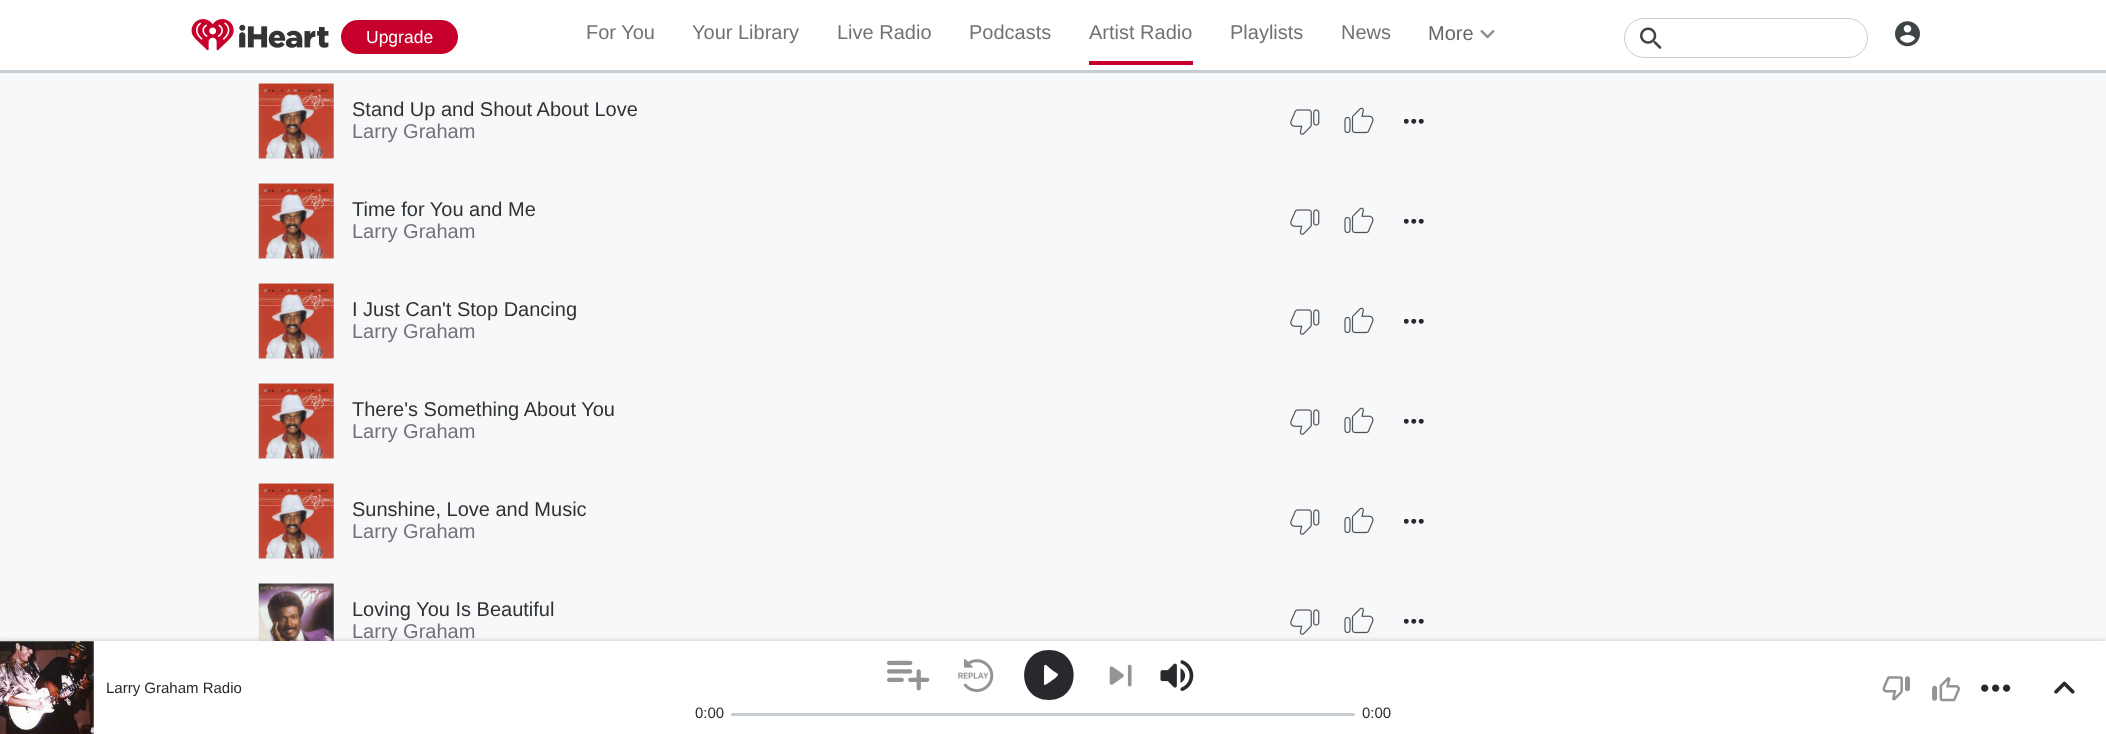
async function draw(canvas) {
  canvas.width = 2106;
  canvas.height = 734;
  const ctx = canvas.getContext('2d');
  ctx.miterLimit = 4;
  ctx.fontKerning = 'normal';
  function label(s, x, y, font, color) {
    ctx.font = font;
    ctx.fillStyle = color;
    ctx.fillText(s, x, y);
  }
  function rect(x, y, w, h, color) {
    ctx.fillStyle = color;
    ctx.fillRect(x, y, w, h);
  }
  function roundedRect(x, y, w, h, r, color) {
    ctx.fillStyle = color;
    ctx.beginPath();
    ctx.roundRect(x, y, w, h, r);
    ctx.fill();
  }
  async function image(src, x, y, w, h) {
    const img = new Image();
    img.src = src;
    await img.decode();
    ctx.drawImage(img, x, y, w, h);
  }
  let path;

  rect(0, 0, 2106, 734, '#f6f8f9');
  rect(0, 0, 2106, 70, '#fff');
  rect(0, 70, 2106, 3, '#c5cdd2');
  await image('assets/img1.png', 191, 19, 138, 32);
  roundedRect(341, 20, 117, 34, 17, '#c6002b');
  label('Upgrade', 366, 43, '17.5px Liberation Sans', '#fff');
  label('For You', 586, 39, '20px Liberation Sans', '#717277');
  label('Your Library', 692, 39, '20px Liberation Sans', '#717277');
  label('Live Radio', 837, 39, '20px Liberation Sans', '#717277');
  label('Podcasts', 969, 39, '20px Liberation Sans', '#717277');
  label('Artist Radio', 1089, 39, '20px Liberation Sans', '#717277');
  rect(1089, 61, 104, 4, '#c6002b');
  label('Playlists', 1230, 39, '20px Liberation Sans', '#717277');
  label('News', 1341, 39, '20px Liberation Sans', '#717277');
  label('More', 1428, 40, '20px Liberation Sans', '#666');
  await image('assets/img2.png', 1480, 30, 15, 9);
  ctx.beginPath();
  ctx.roundRect(1624.5, 18.5, 243, 39, 19.5);
  ctx.strokeStyle = '#c5cdd2';
  ctx.stroke();
  await image('assets/img3.png', 1640, 27, 22, 22);
  await image('assets/img4.png', 1895, 21, 25, 26);
  await image('assets/img5.png', 258, 83, 76, 76);
  label('Stand Up and Shout About Love', 352, 116, '20px Liberation Sans', '#2f3133');
  label('Larry Graham', 352, 138, '20px Liberation Sans', '#717277');
  await image('assets/img6.png', 1290, 109, 30, 26);
  await image('assets/img7.png', 1344, 107, 30, 27);
  await image('assets/img8.png', 1404, 119, 20, 5);
  await image('assets/img9.png', 258, 183, 76, 76);
  label('Time for You and Me', 352, 216, '20px Liberation Sans', '#2f3133');
  label('Larry Graham', 352, 238, '20px Liberation Sans', '#717277');
  await image('assets/img6.png', 1290, 209, 30, 26);
  await image('assets/img7.png', 1344, 207, 30, 27);
  await image('assets/img8.png', 1404, 219, 20, 5);
  await image('assets/img10.png', 258, 283, 76, 76);
  label('I Just Can\'t Stop Dancing', 352, 316, '20px Liberation Sans', '#2f3133');
  label('Larry Graham', 352, 338, '20px Liberation Sans', '#717277');
  await image('assets/img6.png', 1290, 309, 30, 26);
  await image('assets/img7.png', 1344, 307, 30, 27);
  await image('assets/img8.png', 1404, 319, 20, 5);
  await image('assets/img11.png', 258, 383, 76, 76);
  label('There\'s Something About You', 352, 416, '20px Liberation Sans', '#2f3133');
  label('Larry Graham', 352, 438, '20px Liberation Sans', '#717277');
  await image('assets/img6.png', 1290, 409, 30, 26);
  await image('assets/img7.png', 1344, 407, 30, 27);
  await image('assets/img8.png', 1404, 419, 20, 5);
  await image('assets/img12.png', 258, 483, 76, 76);
  label('Sunshine, Love and Music', 352, 516, '20px Liberation Sans', '#2f3133');
  label('Larry Graham', 352, 538, '20px Liberation Sans', '#717277');
  await image('assets/img6.png', 1290, 509, 30, 26);
  await image('assets/img7.png', 1344, 507, 30, 27);
  await image('assets/img8.png', 1404, 519, 20, 5);
  await image('assets/img13.png', 258, 583, 76, 58);
  label('Loving You Is Beautiful', 352, 616, '20px Liberation Sans', '#2f3133');
  label('Larry Graham', 352, 638, '20px Liberation Sans', '#717277');
  await image('assets/img6.png', 1290, 609, 30, 26);
  await image('assets/img7.png', 1344, 607, 30, 27);
  await image('assets/img8.png', 1404, 619, 20, 5);
  ctx.fillStyle = '#00000026';
  ctx.filter = 'blur(2px)';
  ctx.beginPath();
  ctx.rect(0, 640, 2106, 94);
  ctx.fill();
  ctx.filter = 'none';
  rect(0, 641, 2106, 93, '#fff');
  await image('assets/img14.png', 0, 641, 94, 93);
  label('Larry Graham Radio', 106, 693, '15px Liberation Sans', '#27292d');
  await image('assets/img15.png', 1882, 676, 28, 25);
  await image('assets/img16.png', 1932, 677, 28, 25);
  await image('assets/img17.png', 1981, 684, 30, 8);
  await image('assets/img18.png', 2054, 681, 21, 13);
  await image('assets/img19.png', 887, 660, 43, 31);
  await image('assets/img20.png', 958, 659, 36, 33);
  path = new Path2D('M1049 650C1016 650 1016 700 1049 700C1082 700 1082 650 1049 650ZM1044 684V669C1044 661 1047 666 1052 670L1058 674C1059 676 1051 681 1050 682C1049 682 1044 687 1044 684Z');
  ctx.fill(path);
  await image('assets/img21.png', 1109, 664, 23, 23);
  await image('assets/img22.png', 1160, 660, 34, 31);
  label('0:00', 695, 718, '15px Liberation Sans', '#27292d');
  roundedRect(731, 713, 624, 3, 1.5, '#c5cdd2');
  label('0:00', 1362, 718, '15px Liberation Sans', '#27292d');
}

draw(document.querySelector('canvas'));
